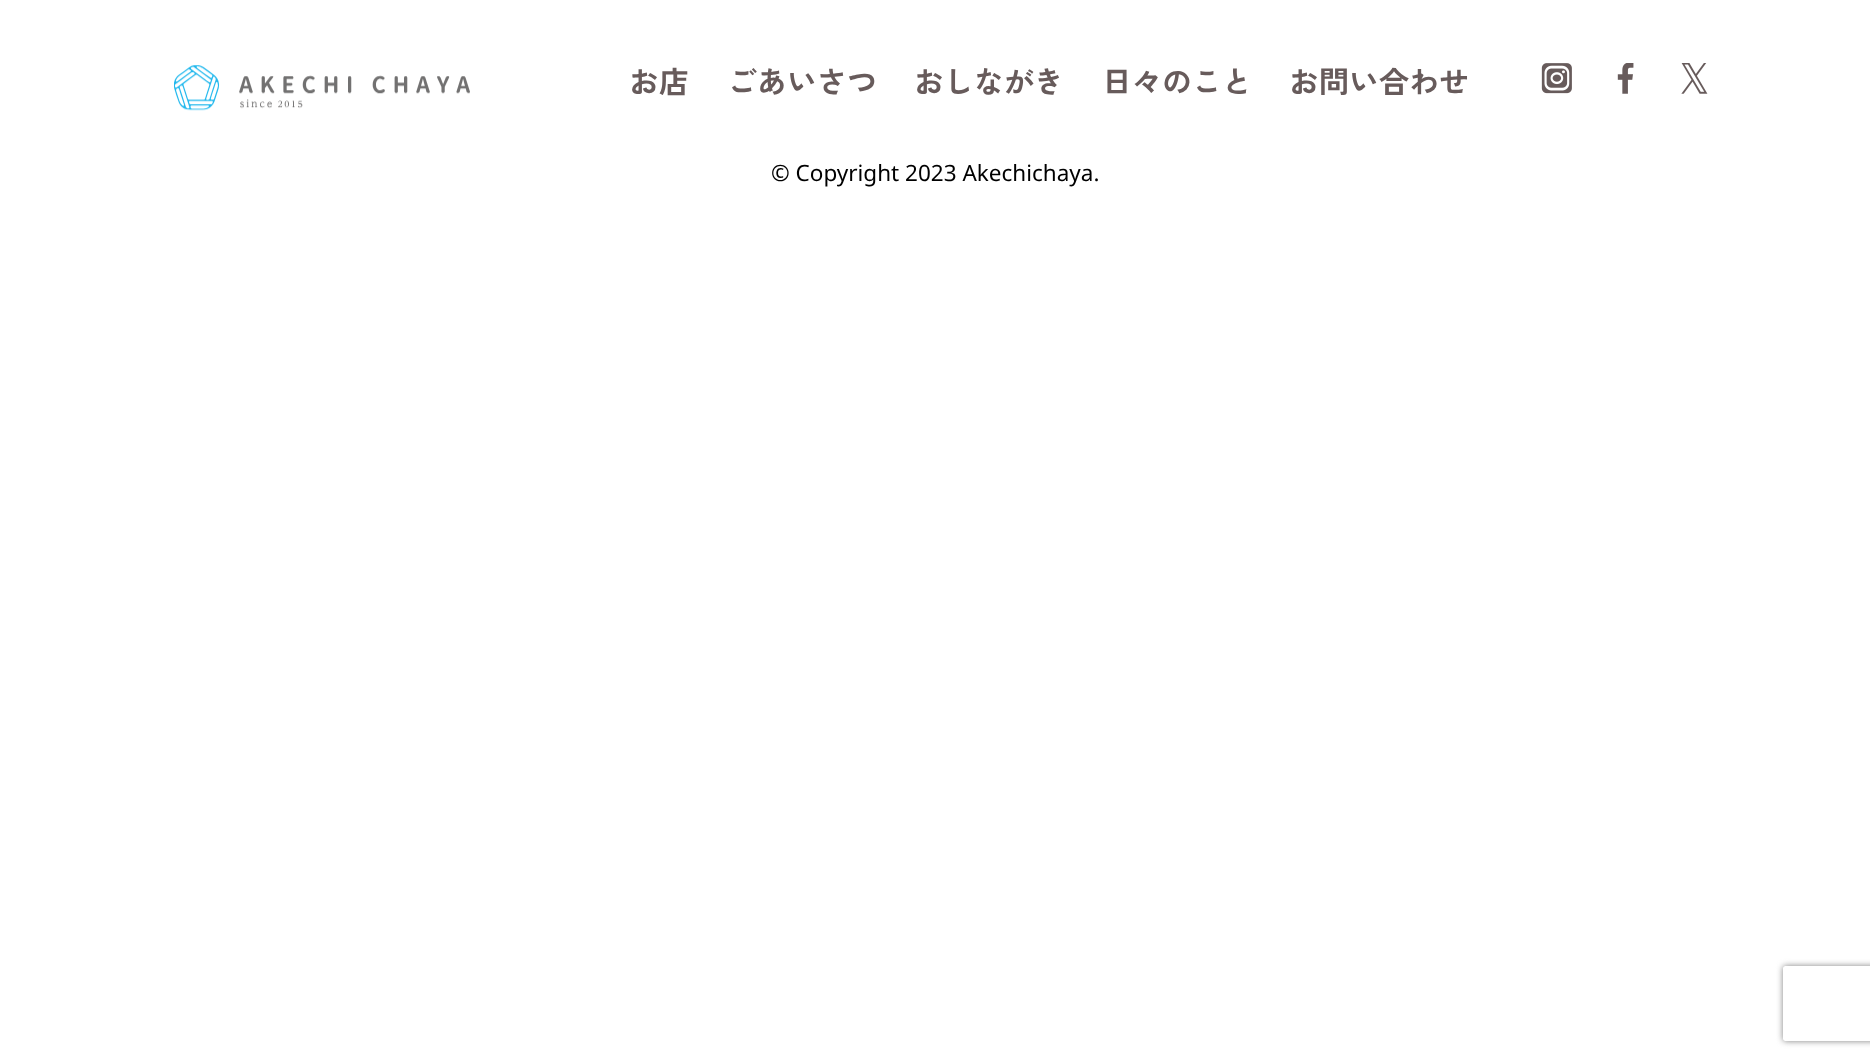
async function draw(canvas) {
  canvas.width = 1870;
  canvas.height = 1058;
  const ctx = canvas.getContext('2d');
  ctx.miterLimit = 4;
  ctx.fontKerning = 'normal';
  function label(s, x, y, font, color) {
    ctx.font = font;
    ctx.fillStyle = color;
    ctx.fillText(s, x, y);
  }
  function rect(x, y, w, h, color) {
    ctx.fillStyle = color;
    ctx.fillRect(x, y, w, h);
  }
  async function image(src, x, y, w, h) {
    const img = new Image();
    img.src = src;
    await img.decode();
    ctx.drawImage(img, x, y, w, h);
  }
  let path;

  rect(0, 0, 1870, 1058, '#fff');
  await image('assets/img1.png', 174, 65, 296, 46);
  label('お店', 629, 93, 'bold 30px Zen Kaku Gothic New', '#675b5b');
  label('ごあいさつ', 727, 93, 'bold 30px Zen Kaku Gothic New', '#675b5b');
  label('おしながき', 914, 93, 'bold 30px Zen Kaku Gothic New', '#675b5b');
  label('日々のこと', 1102, 93, 'bold 30px Zen Kaku Gothic New', '#675b5b');
  label('お問い合わせ', 1289, 93, 'bold 30px Zen Kaku Gothic New', '#675b5b');
  await image('assets/img2.png', 1541, 63, 31, 31);
  await image('assets/img3.png', 1617, 63, 17, 31);
  await image('assets/img4.png', 1681, 63, 27, 31);
  label('© Copyright 2023 Akechichaya.', 771, 181, '22.5px Noto Sans', '#000');
  ctx.save();
  path = new Path2D('M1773 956H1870V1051H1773ZM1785.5 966H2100.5C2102 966 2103 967 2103 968.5V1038.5C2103 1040 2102 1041 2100.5 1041H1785.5C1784 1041 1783 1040 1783 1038.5V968.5C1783 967 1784 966 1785.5 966Z');
  ctx.clip(path, 'evenodd');
  ctx.fillStyle = '#808080';
  ctx.filter = 'blur(3px)';
  ctx.beginPath();
  ctx.roundRect(1783, 966, 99, 75, 2.5);
  ctx.fill();
  ctx.filter = 'none';
  ctx.restore();
}

draw(document.querySelector('canvas'));
